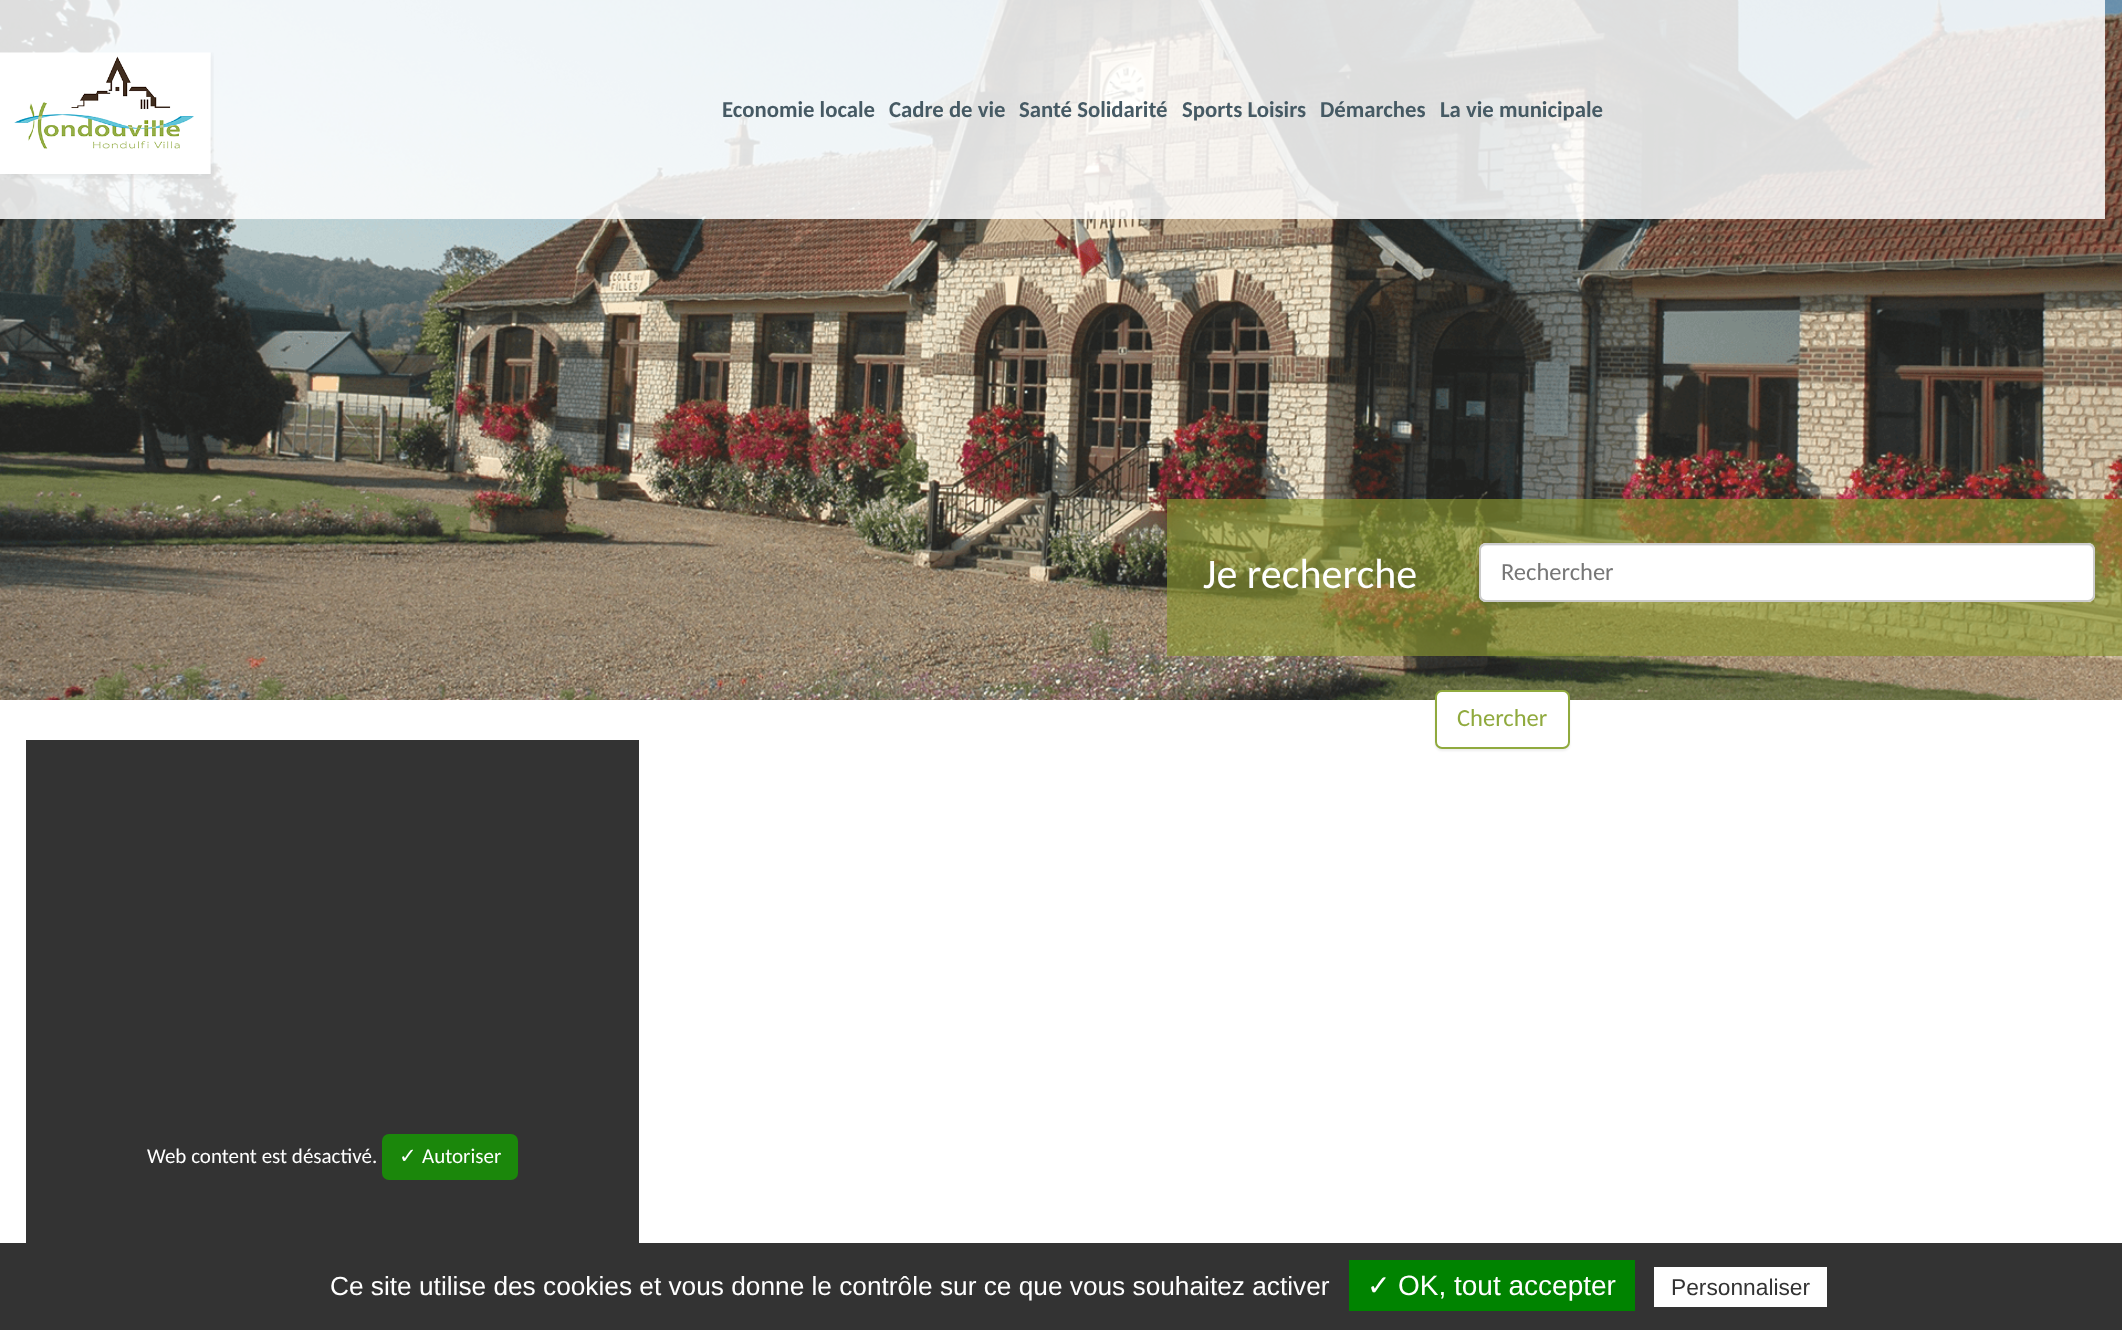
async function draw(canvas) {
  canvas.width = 2122;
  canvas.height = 1330;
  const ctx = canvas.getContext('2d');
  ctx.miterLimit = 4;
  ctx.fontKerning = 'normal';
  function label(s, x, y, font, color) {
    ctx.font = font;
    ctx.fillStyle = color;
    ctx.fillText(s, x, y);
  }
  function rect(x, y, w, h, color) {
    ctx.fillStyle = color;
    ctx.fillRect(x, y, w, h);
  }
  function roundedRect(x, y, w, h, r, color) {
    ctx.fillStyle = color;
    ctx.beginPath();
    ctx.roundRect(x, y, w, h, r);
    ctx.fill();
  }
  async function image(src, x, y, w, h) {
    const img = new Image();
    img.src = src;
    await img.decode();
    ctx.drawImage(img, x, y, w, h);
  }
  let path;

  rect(0, 0, 2122, 1330, '#fff');
  await image('assets/img2.png', 0, 0, 2122, 700);
  rect(0, 0, 2105, 219, '#ffffffd9');
  await image('assets/img1.png', 0, 52, 214, 127);
  label('Economie locale', 722, 117, 'bold 22.75px Carlito', '#465a64');
  label('Cadre de vie', 889, 117, 'bold 22.75px Carlito', '#465a64');
  label('Santé Solidarité', 1019, 117, 'bold 22.75px Carlito', '#465a64');
  label('Sports Loisirs', 1182, 117, 'bold 22.75px Carlito', '#465a64');
  label('Démarches', 1320, 117, 'bold 22.75px Carlito', '#465a64');
  label('La vie municipale', 1440, 117, 'bold 22.75px Carlito', '#465a64');
  rect(1167, 499, 955, 157, '#89952fa6');
  label('Je recherche', 1203, 588, '42px Carlito', '#fff');
  roundedRect(1479, 543, 616, 59, 7, '#fff');
  ctx.fillStyle = '#ececec';
  path = new Path2D('M1486 546H2088C2091 546 2093 548 2093 551V549C2093 546 2091 544 2088 544H1486C1484 544 1481 546 1481 548C1482 547 1484 546 1486 546Z');
  ctx.fill(path);
  ctx.beginPath();
  ctx.roundRect(1480, 544, 614, 57, 6);
  ctx.strokeStyle = '#ccc';
  ctx.lineWidth = 2;
  ctx.stroke();
  label('Rechercher', 1501, 580, '24.5px Carlito', '#777');
  ctx.fillStyle = '#00000012';
  ctx.filter = 'blur(1px)';
  ctx.beginPath();
  ctx.roundRect(1435, 691, 135, 60, 7);
  ctx.fill();
  ctx.filter = 'none';
  ctx.fillStyle = '#fff';
  ctx.beginPath();
  ctx.roundRect(1436, 691, 133, 57, 6);
  ctx.fill();
  ctx.strokeStyle = '#90aa3e';
  ctx.stroke();
  label('Chercher', 1457, 726, '24.5px Carlito', '#90aa3e');
  rect(26, 740, 613, 503, '#333');
  label('Web content est désactivé.', 147, 1163, '21px Carlito', '#fff');
  roundedRect(382, 1134, 136, 46, 7, '#1b870b');
  label('✓', 399, 1163, '21px DejaVu Sans', '#fff');
  label('Autoriser', 422, 1163, '21px Carlito', '#fff');
  rect(0, 1243, 2122, 87, '#333');
  label('Ce site utilise des cookies et vous donne le contrôle sur ce que vous souhaitez activer', 330, 1295, '26.25px Liberation Sans', '#fff');
  rect(1349, 1260, 286, 51, '#008300');
  label('✓', 1367, 1295, '28px DejaVu Sans', '#fff');
  label('OK, tout accepter', 1398, 1295, '28px Liberation Sans', '#fff');
  rect(1654, 1267, 173, 40, '#fff');
  label('Personnaliser', 1671, 1295, '22.75px Liberation Sans', '#333');
}

draw(document.querySelector('canvas'));
